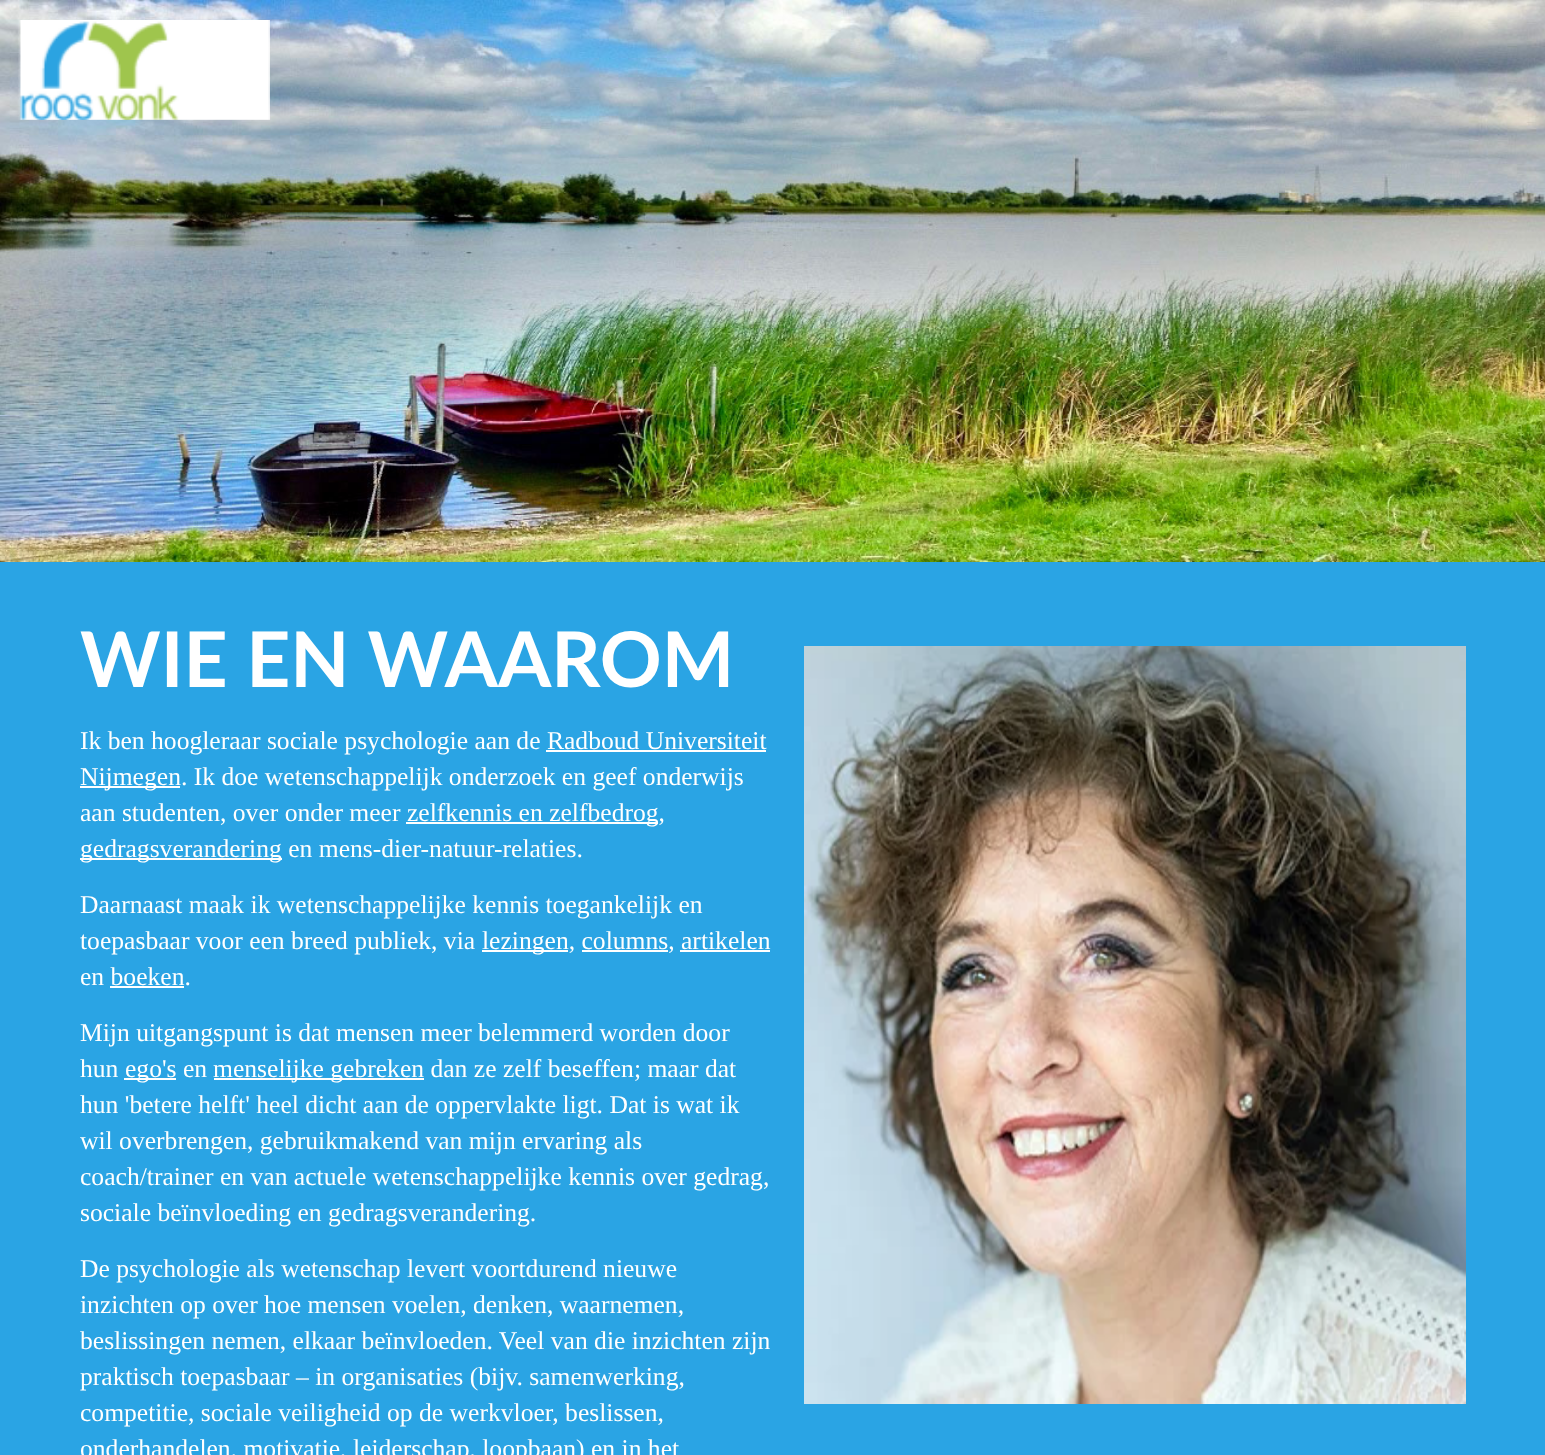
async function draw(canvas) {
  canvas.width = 1545;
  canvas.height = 1455;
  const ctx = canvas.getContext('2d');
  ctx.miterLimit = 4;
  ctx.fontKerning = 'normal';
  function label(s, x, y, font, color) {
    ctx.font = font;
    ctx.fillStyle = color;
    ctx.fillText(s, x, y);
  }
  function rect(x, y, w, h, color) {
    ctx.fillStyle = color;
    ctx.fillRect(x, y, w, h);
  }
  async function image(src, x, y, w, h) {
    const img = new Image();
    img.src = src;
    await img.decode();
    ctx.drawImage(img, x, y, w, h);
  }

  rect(0, 0, 1545, 1455, '#2aa4e4');
  await image('assets/img2.png', 0, 0, 1545, 562);
  await image('assets/img1.png', 18, 20, 252, 100);
  label('WIE EN WAAROM', 80, 687, 'bold 76.75px Lato', '#fff');
  label('Ik ben hoogleraar sociale psychologie aan de Radboud Universiteit', 80, 749, '25.6px Liberation Serif', '#fff');
  rect(80, 786, 100, 2, '#fff');
  label('Nijmegen. Ik doe wetenschappelijk onderzoek en geef onderwijs', 80, 785, '25.6px Liberation Serif', '#fff');
  rect(546, 750, 220, 2, '#fff');
  label('aan studenten, over onder meer', 80, 821, '25.6px Liberation Serif', '#fff');
  rect(406, 822, 252, 2, '#fff');
  label('zelfkennis en zelfbedrog,', 407, 821, '25.6px Liberation Serif', '#fff');
  rect(80, 858, 202, 2, '#fff');
  label('gedragsverandering en mens-dier-natuur-relaties.', 80, 857, '25.6px Liberation Serif', '#fff');
  label('Daarnaast maak ik wetenschappelijke kennis toegankelijk en', 80, 913, '25.6px Liberation Serif', '#fff');
  label('toepasbaar voor een breed publiek, via', 80, 949, '25.6px Liberation Serif', '#fff');
  rect(482, 950, 86, 2, '#fff');
  label('lezingen, columns, artikelen', 482, 949, '25.6px Liberation Serif', '#fff');
  rect(582, 950, 86, 2, '#fff');
  rect(680, 950, 90, 2, '#fff');
  label('en boeken.', 80, 985, '25.6px Liberation Serif', '#fff');
  rect(110, 986, 74, 2, '#fff');
  label('Mijn uitgangspunt is dat mensen meer belemmerd worden door', 80, 1041, '25.6px Liberation Serif', '#fff');
  label('hun', 80, 1077, '25.6px Liberation Serif', '#fff');
  rect(124, 1078, 52, 2, '#fff');
  label('ego\'s en', 125, 1077, '25.6px Liberation Serif', '#fff');
  rect(214, 1078, 210, 2, '#fff');
  label('menselijke gebreken dan ze zelf beseffen; maar dat', 213, 1077, '25.6px Liberation Serif', '#fff');
  label('hun \'betere helft\' heel dicht aan de oppervlakte ligt. Dat is wat ik', 80, 1113, '25.6px Liberation Serif', '#fff');
  label('wil overbrengen, gebruikmakend van mijn ervaring als', 80, 1149, '25.6px Liberation Serif', '#fff');
  label('coach/trainer en van actuele wetenschappelijke kennis over gedrag,', 80, 1185, '25.6px Liberation Serif', '#fff');
  label('sociale beïnvloeding en gedragsverandering.', 80, 1221, '25.6px Liberation Serif', '#fff');
  label('De psychologie als wetenschap levert voortdurend nieuwe', 80, 1277, '25.6px Liberation Serif', '#fff');
  label('inzichten op over hoe mensen voelen, denken, waarnemen,', 80, 1313, '25.6px Liberation Serif', '#fff');
  label('beslissingen nemen, elkaar beïnvloeden. Veel van die inzichten zijn', 80, 1349, '25.6px Liberation Serif', '#fff');
  label('praktisch toepasbaar – in organisaties (bijv. samenwerking,', 80, 1385, '25.6px Liberation Serif', '#fff');
  label('competitie, sociale veiligheid op de werkvloer, beslissen,', 80, 1421, '25.6px Liberation Serif', '#fff');
  label('onderhandelen, motivatie, leiderschap, loopbaan) en in het', 80, 1457, '25.6px Liberation Serif', '#fff');
  await image('assets/img3.png', 804, 646, 662, 758);
}

draw(document.querySelector('canvas'));
